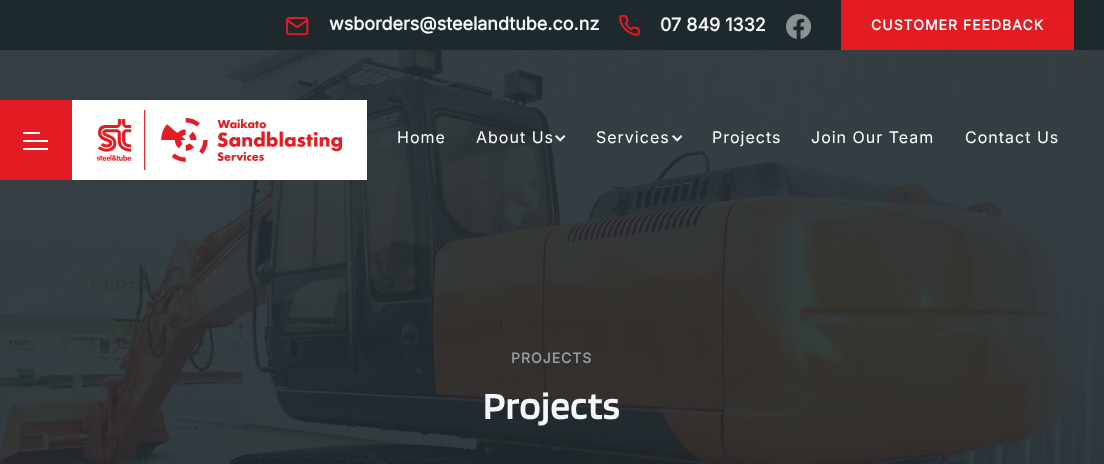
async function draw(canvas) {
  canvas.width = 1104;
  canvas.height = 464;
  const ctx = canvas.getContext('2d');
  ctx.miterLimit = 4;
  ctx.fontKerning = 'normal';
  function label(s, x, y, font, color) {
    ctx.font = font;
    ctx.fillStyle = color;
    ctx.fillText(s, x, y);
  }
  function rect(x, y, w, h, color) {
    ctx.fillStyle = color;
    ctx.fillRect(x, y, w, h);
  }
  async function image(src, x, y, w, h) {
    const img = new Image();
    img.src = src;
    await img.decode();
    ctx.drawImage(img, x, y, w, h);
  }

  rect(0, 0, 1104, 464, '#1e292e');
  await image('assets/img1.png', 286, 17, 23, 18);
  label('wsborders@steelandtube.co.nz', 329, 30, 'bold 18px Inter', '#f6f7f8');
  await image('assets/img2.png', 619, 15, 21, 21);
  label('07 849 1332', 660, 31, 'bold 18px Inter', '#f6f7f8');
  await image('assets/img3.png', 786, 14, 25, 25);
  rect(841, 0, 233, 50, '#e31b22');
  ctx.letterSpacing = '1px';
  label('CUSTOMER FEEDBACK', 871, 30, 'bold 14px Inter', '#fff');
  await image('assets/img7.png', 0, 50, 1104, 414);
  rect(0, 100, 72, 80, '#e31b22');
  rect(23, 132, 17, 2, '#fff');
  rect(23, 140, 25, 2, '#fff');
  rect(23, 148, 25, 2, '#fff');
  rect(72, 100, 295, 80, '#fff');
  await image('assets/img4.png', 97, 110, 245, 60);
  label('Home', 397, 143, '16px Inter', '#fff');
  label('About Us', 476, 143, '16px Inter', '#fff');
  await image('assets/img5.png', 555, 135, 11, 7);
  label('Services', 596, 143, '16px Inter', '#fff');
  await image('assets/img6.png', 672, 135, 10, 7);
  label('Projects', 712, 143, '16px Inter', '#fff');
  label('Join Our Team', 811, 143, '16px Inter', '#fff');
  label('Contact Us', 965, 143, '16px Inter', '#fff');
  label('PROJECTS', 511, 363, 'bold 14px Inter', '#969ea2');
  ctx.letterSpacing = '0px';
  label('Projects', 483, 419, '600 40px Blinker', '#f6f7f8');
}

draw(document.querySelector('canvas'));
